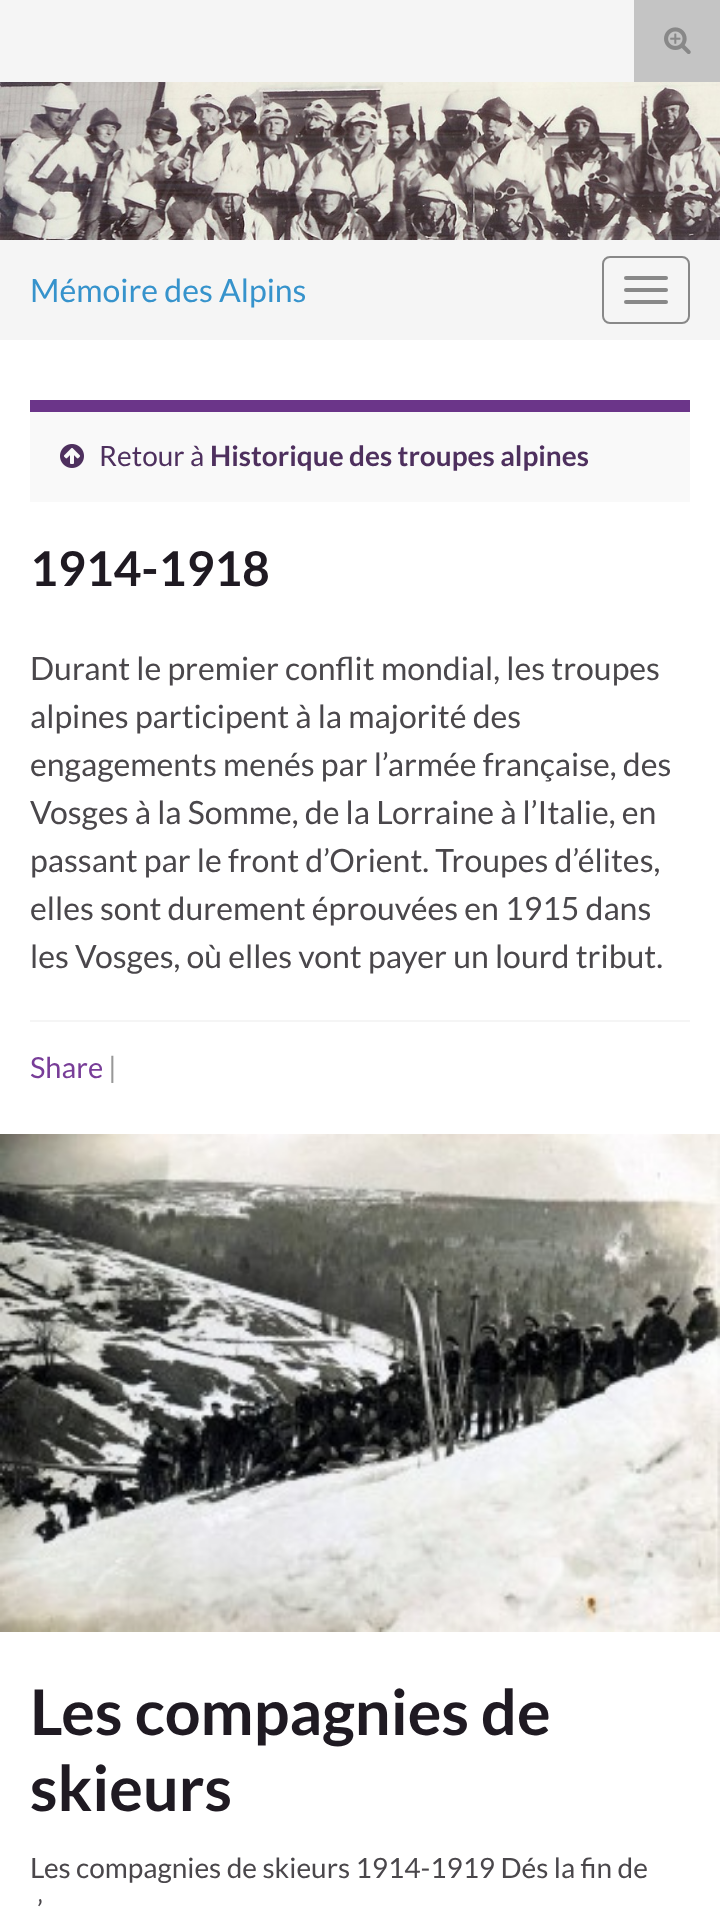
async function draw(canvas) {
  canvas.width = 720;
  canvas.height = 1907;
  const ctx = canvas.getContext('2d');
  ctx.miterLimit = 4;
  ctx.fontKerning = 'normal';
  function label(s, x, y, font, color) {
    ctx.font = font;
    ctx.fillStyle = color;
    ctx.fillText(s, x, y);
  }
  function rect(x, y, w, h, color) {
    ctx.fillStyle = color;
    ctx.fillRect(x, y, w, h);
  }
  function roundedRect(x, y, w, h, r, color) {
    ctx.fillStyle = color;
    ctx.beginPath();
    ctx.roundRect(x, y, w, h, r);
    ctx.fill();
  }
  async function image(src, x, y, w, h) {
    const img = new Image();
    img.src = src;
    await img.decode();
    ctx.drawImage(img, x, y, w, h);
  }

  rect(0, 0, 720, 1907, '#f5f5f5');
  rect(634, 0, 86, 82, '#c4c4c4');
  await image('assets/img1.png', 664, 27, 27, 27);
  await image('assets/img2.png', 0, 82, 720, 158);
  label('Mémoire des Alpins', 30, 302, '32px Lato', '#3693cc');
  ctx.beginPath();
  ctx.roundRect(603, 257, 86, 66, 7);
  ctx.strokeStyle = '#888';
  ctx.lineWidth = 2;
  ctx.stroke();
  roundedRect(624, 276, 44, 4, 2, '#888');
  roundedRect(624, 288, 44, 4, 2, '#888');
  roundedRect(624, 300, 44, 4, 2, '#888');
  rect(0, 340, 720, 1567, '#fff');
  rect(30, 412, 660, 90, '#f9f9f9');
  rect(30, 400, 660, 12, '#6b3589');
  await image('assets/img3.png', 60, 444, 24, 24);
  label('Retour à', 99, 466, '28px Lato', '#4e305e');
  label('Historique des troupes alpines', 210, 466, 'bold 28px Lato', '#4e305e');
  label('1914-1918', 30, 586, 'bold 48px Lato', '#1f1a22');
  label('Durant le premier conflit mondial, les troupes', 30, 680, '32px Lato', '#4a474b');
  label('alpines participent à la majorité des', 30, 728, '32px Lato', '#4a474b');
  label('engagements menés par l’armée française, des', 30, 776, '32px Lato', '#4a474b');
  label('Vosges à la Somme, de la Lorraine à l’Italie, en', 30, 824, '32px Lato', '#4a474b');
  label('passant par le front d’Orient. Troupes d’élites,', 30, 872, '32px Lato', '#4a474b');
  label('elles sont durement éprouvées en 1915 dans', 30, 920, '32px Lato', '#4a474b');
  label('les Vosges, où elles vont payer un lourd tribut.', 30, 968, '32px Lato', '#4a474b');
  rect(30, 1020, 660, 2, '#f5f5f5');
  label('Share', 30, 1078, '29px Lato', '#783d98');
  label('|', 108, 1078, '29px Lato', '#989898');
  await image('assets/img4.png', 0, 1134, 720, 498);
  label('Les compagnies de', 30, 1735, 'bold 63px Lato', '#1f1a22');
  label('skieurs', 30, 1811, 'bold 63px Lato', '#1f1a22');
  label('Les compagnies de skieurs 1914-1919 Dés la fin de', 30, 1878, '28px Lato', '#4a474b');
  label('’', 37, 1920, '28px Lato', '#4a474b');
}

draw(document.querySelector('canvas'));
